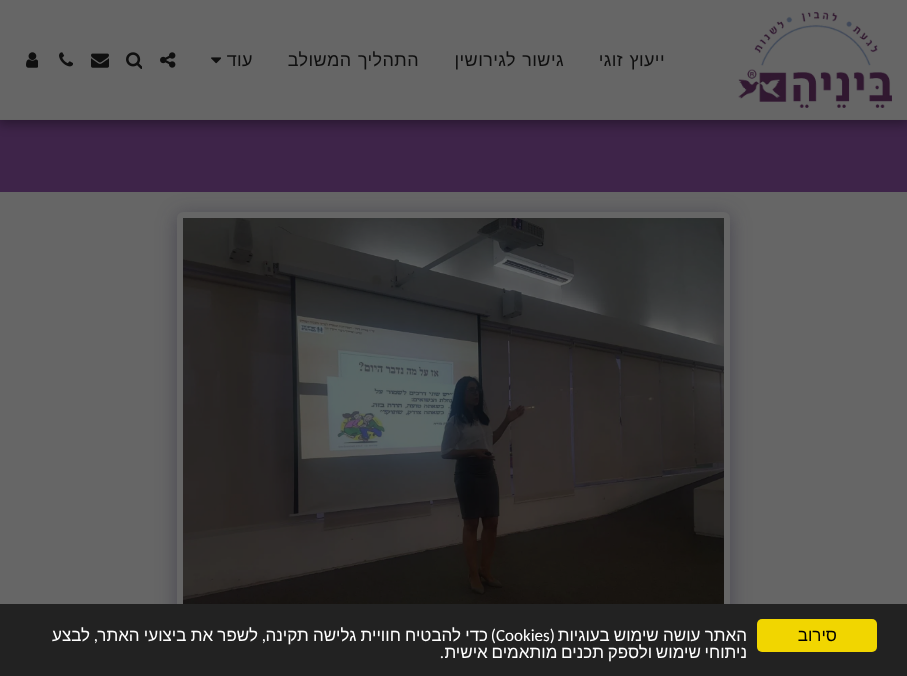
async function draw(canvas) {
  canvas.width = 907;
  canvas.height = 676;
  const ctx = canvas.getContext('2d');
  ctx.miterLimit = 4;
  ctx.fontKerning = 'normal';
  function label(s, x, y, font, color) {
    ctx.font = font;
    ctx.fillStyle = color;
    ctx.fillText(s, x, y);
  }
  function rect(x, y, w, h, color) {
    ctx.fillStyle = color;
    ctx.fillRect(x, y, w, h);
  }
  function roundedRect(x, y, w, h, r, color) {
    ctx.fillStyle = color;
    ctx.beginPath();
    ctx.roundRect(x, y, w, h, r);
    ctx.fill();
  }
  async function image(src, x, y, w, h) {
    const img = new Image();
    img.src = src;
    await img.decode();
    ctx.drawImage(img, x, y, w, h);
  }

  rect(0, 0, 907, 676, '#666');
  rect(0, 120, 907, 72, '#3e2449');
  ctx.fillStyle = '#00000059';
  ctx.filter = 'blur(6px)';
  ctx.beginPath();
  ctx.rect(-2, 0, 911, 124);
  ctx.fill();
  ctx.filter = 'none';
  rect(0, 0, 907, 119, '#666');
  rect(0, 119, 907, 1, '#646464');
  await image('assets/img1.png', 738, 12, 154, 96);
  ctx.letterSpacing = '0.4px';
  ctx.wordSpacing = '1px';
  ctx.direction = 'rtl';
  label('ייעוץ זוגי', 665, 66, '18px Liberation Sans', '#0f0f0f');
  label('גישור לגירושין', 564, 66, '18px Liberation Sans', '#0f0f0f');
  label('התהליך המשולב', 419, 66, '18px Liberation Sans', '#0f0f0f');
  ctx.wordSpacing = '0px';
  label('עוד', 253, 66, '18px Liberation Sans', '#0f0f0f');
  await image('assets/img2.png', 211, 57, 10, 7);
  await image('assets/img3.png', 160, 52, 16, 16);
  await image('assets/img4.png', 126, 52, 16, 17);
  await image('assets/img5.png', 91, 53, 18, 15);
  await image('assets/img6.png', 59, 52, 14, 15);
  await image('assets/img7.png', 26, 52, 12, 16);
  ctx.fillStyle = '#1f193166';
  ctx.filter = 'blur(10px)';
  ctx.beginPath();
  ctx.roundRect(177, 215, 553, 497, 6);
  ctx.fill();
  ctx.filter = 'none';
  roundedRect(177, 212, 553, 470, 6, '#666');
  await image('assets/img8.png', 183, 218, 541, 386);
  rect(0, 604, 907, 72, '#222');
  roundedRect(757, 619, 120, 33, 5, '#f1d600');
  ctx.letterSpacing = '0px';
  label('סירוב', 837, 641, '17px Liberation Sans', '#000');
  ctx.wordSpacing = '-0.5px';
  label('האתר עושה שימוש בעוגיות', 747, 641, '17px Liberation Sans', '#fff');
  ctx.wordSpacing = '0px';
  label('(', 555, 641, '17px Carlito', '#fff');
  ctx.direction = 'ltr';
  label('Cookies', 496, 641, '17px Carlito', '#fff');
  ctx.direction = 'rtl';
  label(')', 496, 641, '17px Carlito', '#fff');
  ctx.wordSpacing = '-0.5px';
  label('כדי להבטיח חוויית גלישה תקינה', 488, 641, '17px Liberation Sans', '#fff');
  ctx.wordSpacing = '0px';
  label(',', 266, 641, '17px Carlito', '#fff');
  ctx.wordSpacing = '-0.5px';
  label('לשפר את ביצועי האתר', 258, 641, '17px Liberation Sans', '#fff');
  ctx.wordSpacing = '0px';
  label(',', 98, 641, '17px Carlito', '#fff');
  label('לבצע', 90, 641, '17px Liberation Sans', '#fff');
  ctx.wordSpacing = '-1px';
  label('ניתוחי שימוש ולספק תכנים מותאמים אישית', 747, 658, '17px Liberation Sans', '#fff');
  ctx.wordSpacing = '0px';
  label('.', 444, 658, '17px Carlito', '#fff');
}

draw(document.querySelector('canvas'));
